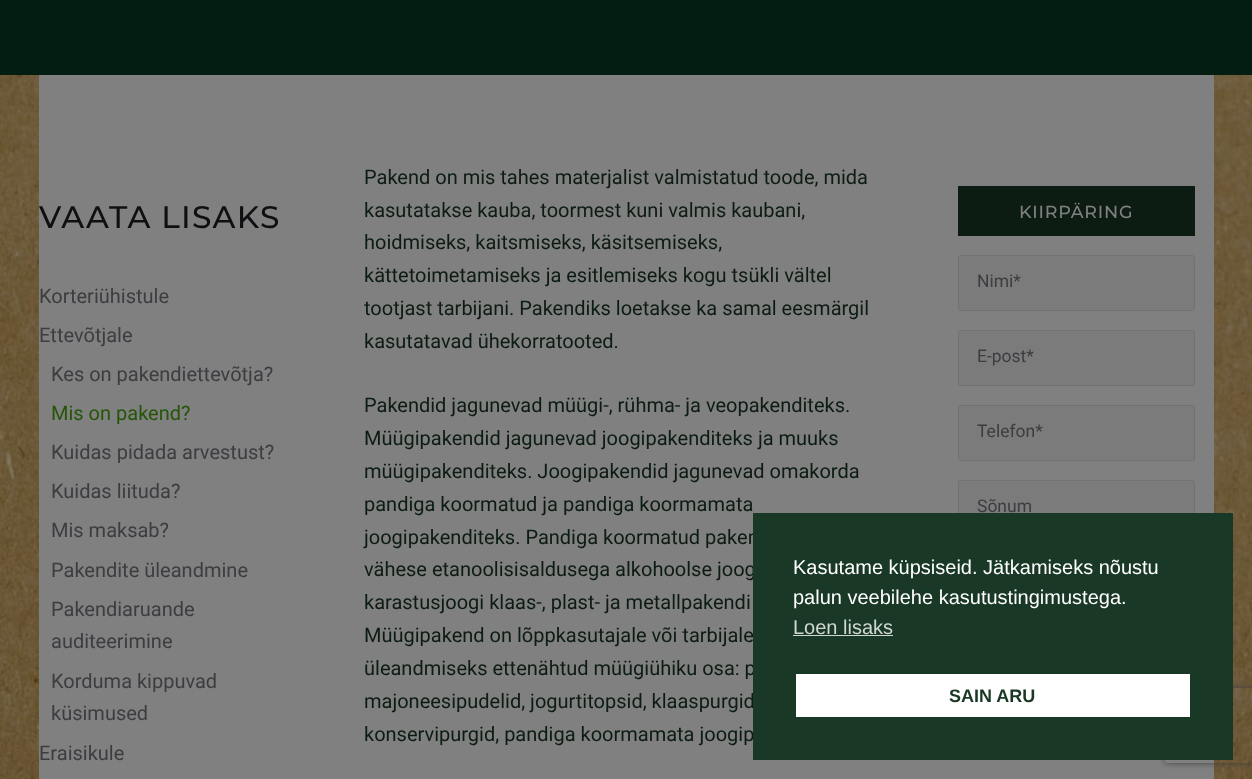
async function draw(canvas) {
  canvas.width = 1252;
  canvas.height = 779;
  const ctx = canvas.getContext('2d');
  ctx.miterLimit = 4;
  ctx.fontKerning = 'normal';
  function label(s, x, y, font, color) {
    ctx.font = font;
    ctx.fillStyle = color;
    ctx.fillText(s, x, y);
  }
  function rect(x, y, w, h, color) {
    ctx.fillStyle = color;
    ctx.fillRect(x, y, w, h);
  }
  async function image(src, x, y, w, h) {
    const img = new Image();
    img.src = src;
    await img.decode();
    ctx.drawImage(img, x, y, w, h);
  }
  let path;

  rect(0, 0, 1252, 779, '#fff');
  rect(0, 0, 1252, 75, '#041d12');
  await image('assets/img1.png', 0, 75, 1252, 704);
  rect(39, 75, 1175, 704, '#808080');
  ctx.letterSpacing = '1.25px';
  label('VAATA LISAKS', 39, 228, '500 31.25px Montserrat', '#0f0f12');
  ctx.letterSpacing = '0px';
  label('Korteriühistule', 39, 303, '20px Roboto', '#3d3c40');
  label('Ettevõtjale', 39, 342, '20px Roboto', '#3d3c40');
  label('Kes on pakendiettevõtja?', 51, 381, '20px Roboto', '#3d3c40');
  label('Mis on pakend?', 51, 420, '20px Roboto', '#245508');
  label('Kuidas pidada arvestust?', 51, 459, '20px Roboto', '#3d3c40');
  label('Kuidas liituda?', 51, 498, '20px Roboto', '#3d3c40');
  label('Mis maksab?', 51, 537, '20px Roboto', '#3d3c40');
  label('Pakendite üleandmine', 51, 577, '20px Roboto', '#3d3c40');
  label('Pakendiaruande', 51, 616, '20px Roboto', '#3d3c40');
  label('auditeerimine', 51, 648, '20px Roboto', '#3d3c40');
  label('Korduma kippuvad', 51, 688, '20px Roboto', '#3d3c40');
  label('küsimused', 51, 720, '20px Roboto', '#3d3c40');
  label('Eraisikule', 39, 760, '20px Roboto', '#3d3c40');
  label('Pakend on mis tahes materjalist valmistatud toode, mida', 364, 184, '20px Roboto', '#0d1c13');
  label('kasutatakse kauba, toormest kuni valmis kaubani,', 364, 217, '20px Roboto', '#0d1c13');
  label('hoidmiseks, kaitsmiseks, käsitsemiseks,', 364, 249, '20px Roboto', '#0d1c13');
  label('kättetoimetamiseks ja esitlemiseks kogu tsükli vältel', 364, 282, '20px Roboto', '#0d1c13');
  label('tootjast tarbijani. Pakendiks loetakse ka samal eesmärgil', 364, 315, '20px Roboto', '#0d1c13');
  label('kasutatavad ühekorratooted.', 364, 348, '20px Roboto', '#0d1c13');
  label('Pakendid jagunevad müügi-, rühma- ja veopakenditeks.', 364, 412, '20px Roboto', '#0d1c13');
  label('Müügipakendid jagunevad joogipakenditeks ja muuks', 364, 445, '20px Roboto', '#0d1c13');
  label('müügipakenditeks. Joogipakendid jagunevad omakorda', 364, 478, '20px Roboto', '#0d1c13');
  label('pandiga koormatud ja pandiga koormamata', 364, 511, '20px Roboto', '#0d1c13');
  label('joogipakenditeks. Pandiga koormatud paken', 364, 544, '20px Roboto', '#0d1c13');
  label('vähese etanoolisisaldusega alkohoolse joog', 364, 576, '20px Roboto', '#0d1c13');
  label('karastusjoogi klaas-, plast- ja metallpakendi', 364, 609, '20px Roboto', '#0d1c13');
  label('Müügipakend on lõppkasutajale või tarbijale', 364, 642, '20px Roboto', '#0d1c13');
  label('üleandmiseks ettenähtud müügiühiku osa: p', 364, 675, '20px Roboto', '#0d1c13');
  label('majoneesipudelid, jogurtitopsid, klaaspurgid', 364, 708, '20px Roboto', '#0d1c13');
  label('konservipurgid, pandiga koormamata joogip', 364, 741, '20px Roboto', '#0d1c13');
  rect(958, 186, 237, 50, '#0d1c13');
  ctx.letterSpacing = '0.75px';
  label('KIIRPÄRING', 1019, 218, '500 17.5px Montserrat', '#808080');
  ctx.fillStyle = '#7b7b7b';
  ctx.beginPath();
  ctx.roundRect(958.5, 255.5, 236, 55, 2);
  ctx.fill();
  ctx.strokeStyle = '#727174';
  ctx.stroke();
  ctx.letterSpacing = '0px';
  label('Nimi*', 977, 287, '17.5px Roboto', '#3d3c40');
  ctx.fillStyle = '#7b7b7b';
  ctx.beginPath();
  ctx.roundRect(958.5, 330.5, 236, 55, 2);
  ctx.fill();
  ctx.stroke();
  label('E-post*', 977, 362, '17.5px Roboto', '#3d3c40');
  ctx.fillStyle = '#7b7b7b';
  ctx.beginPath();
  ctx.roundRect(958.5, 405.5, 236, 55, 2);
  ctx.fill();
  ctx.stroke();
  label('Telefon*', 977, 437, '17.5px Roboto', '#3d3c40');
  ctx.fillStyle = '#7b7b7b';
  ctx.beginPath();
  ctx.roundRect(958.5, 480.5, 236, 147, 2);
  ctx.fill();
  ctx.stroke();
  label('Sõnum', 977, 512, '17.5px Roboto', '#3d3c40');
  ctx.save();
  path = new Path2D('M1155 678H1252V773H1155ZM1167.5 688H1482.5C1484 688 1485 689 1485 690.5V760.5C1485 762 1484 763 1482.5 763H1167.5C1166 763 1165 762 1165 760.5V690.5C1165 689 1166 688 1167.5 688Z');
  ctx.clip(path, 'evenodd');
  ctx.fillStyle = '#404040';
  ctx.filter = 'blur(3px)';
  ctx.beginPath();
  ctx.roundRect(1165, 688, 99, 75, 2.5);
  ctx.fill();
  ctx.filter = 'none';
  ctx.restore();
  rect(753, 513, 480, 247, '#193825');
  label('Kasutame küpsiseid. Jätkamiseks nõustu', 793, 574, '20px Liberation Sans', '#fff');
  label('palun veebilehe kasutustingimustega.', 793, 604, '20px Liberation Sans', '#fff');
  label('Loen lisaks', 793, 634, '20px Liberation Sans', '#d1d7d3');
  rect(793, 635, 100, 1, '#d1d7d3');
  rect(796, 674, 394, 43, '#fff');
  label('SAIN ARU', 949, 702, 'bold 18px Liberation Sans', '#193825');
}

draw(document.querySelector('canvas'));
